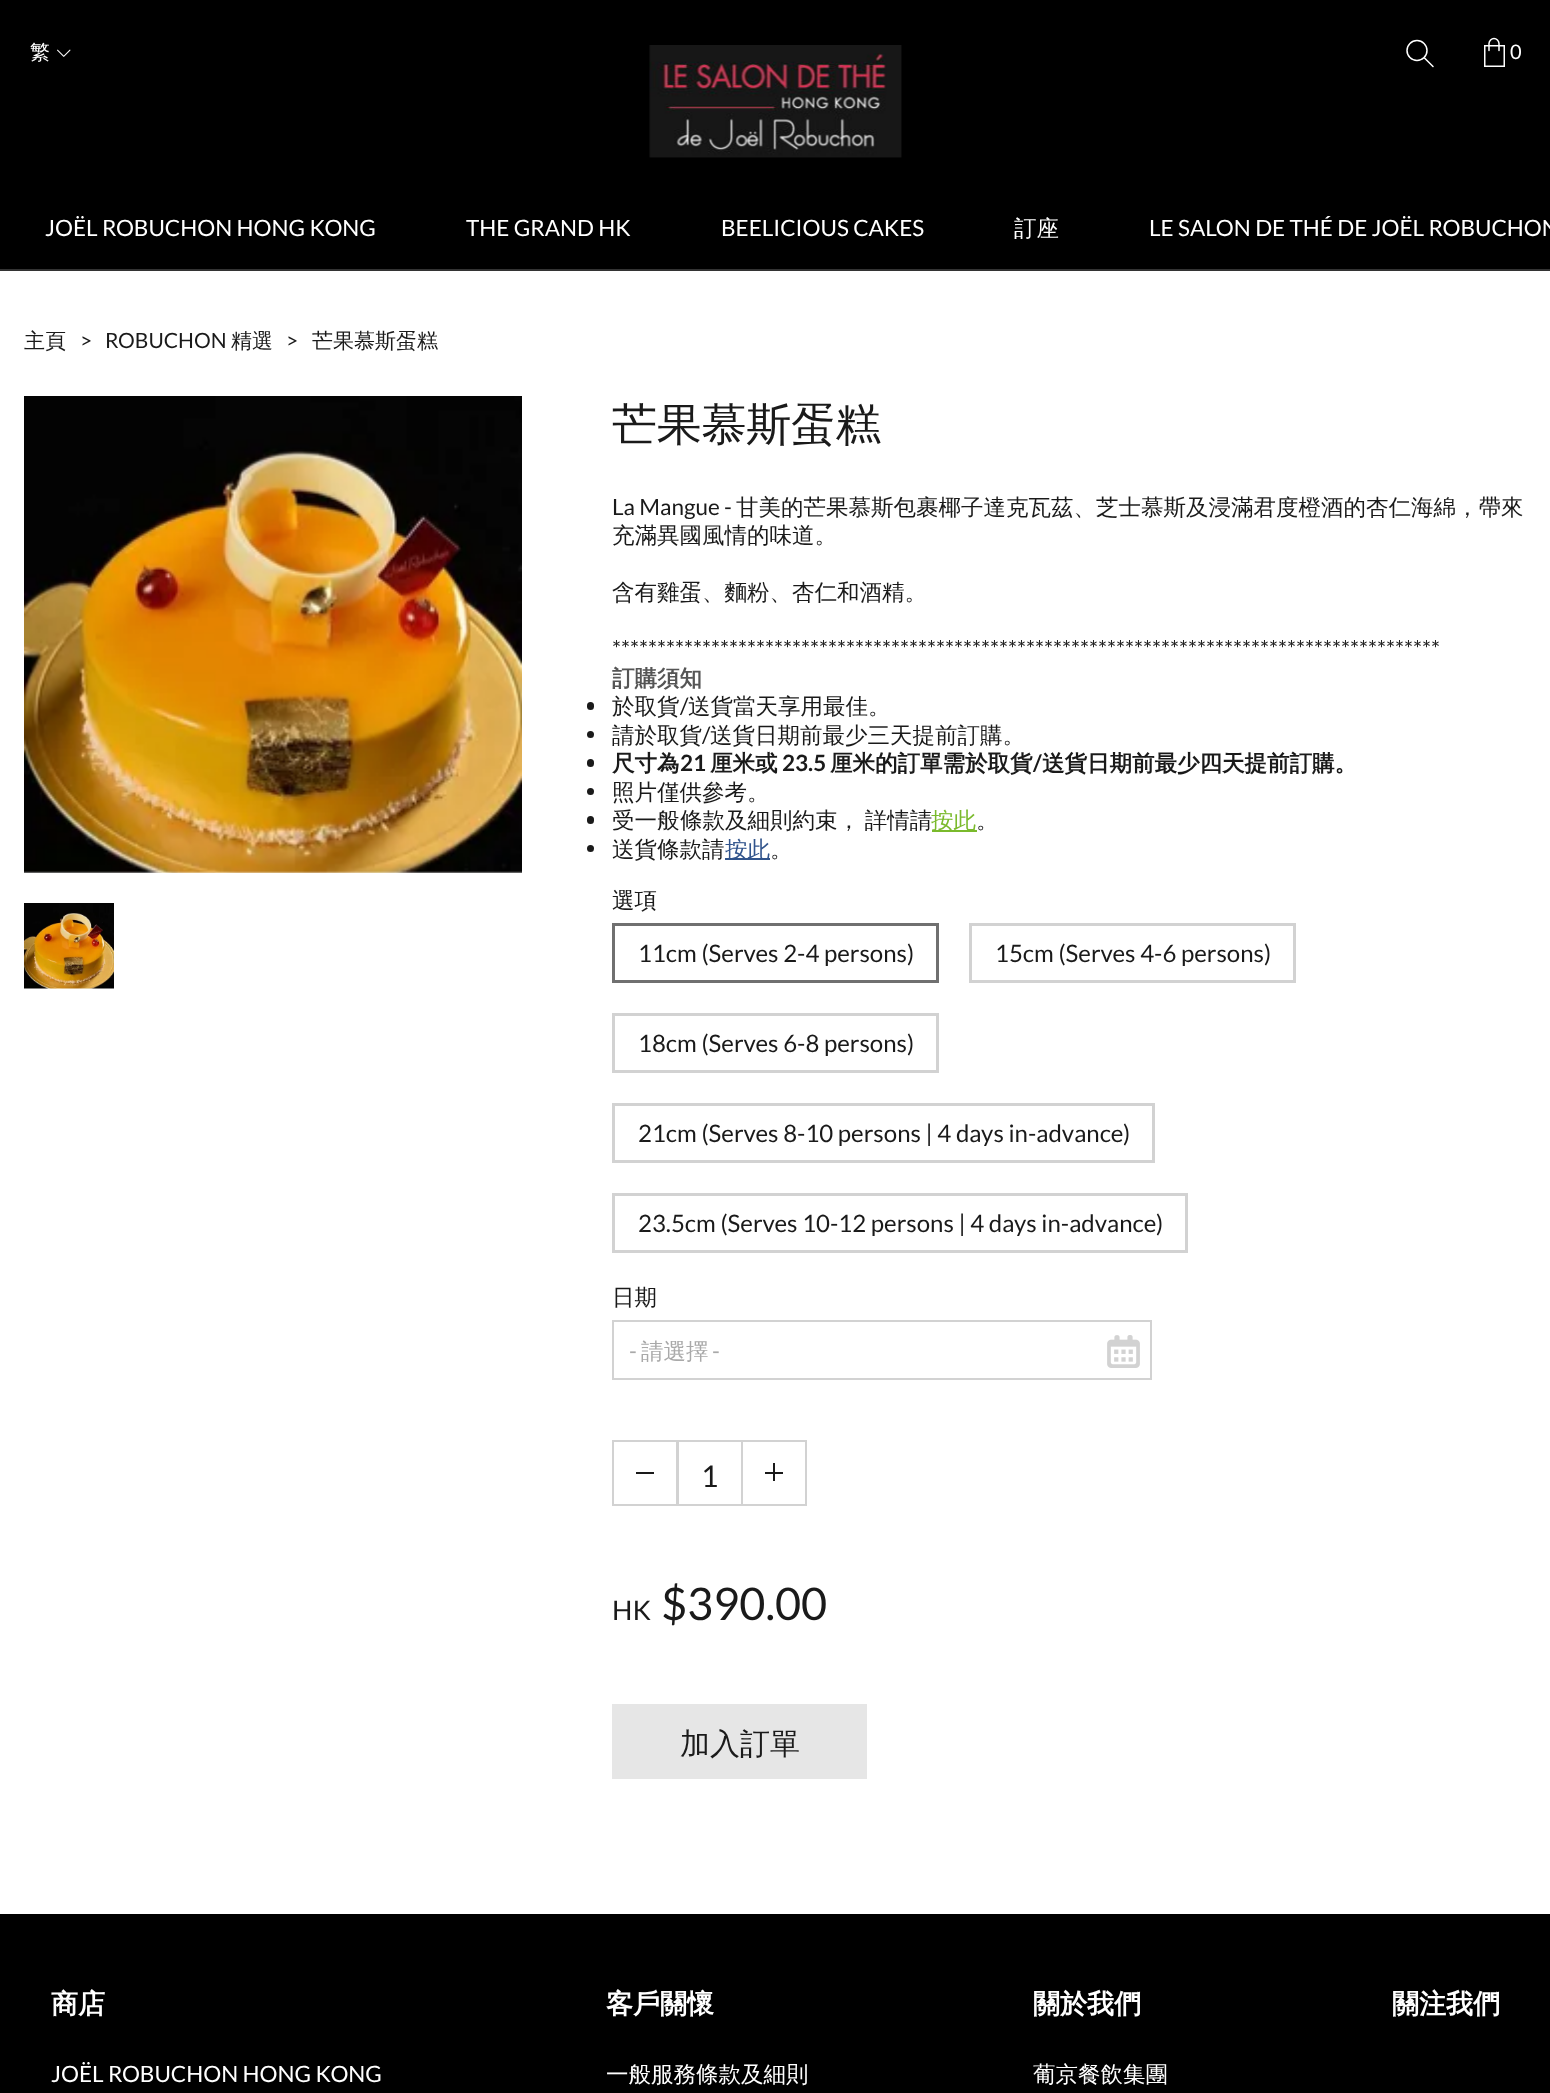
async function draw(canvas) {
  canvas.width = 1550;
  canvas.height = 2093;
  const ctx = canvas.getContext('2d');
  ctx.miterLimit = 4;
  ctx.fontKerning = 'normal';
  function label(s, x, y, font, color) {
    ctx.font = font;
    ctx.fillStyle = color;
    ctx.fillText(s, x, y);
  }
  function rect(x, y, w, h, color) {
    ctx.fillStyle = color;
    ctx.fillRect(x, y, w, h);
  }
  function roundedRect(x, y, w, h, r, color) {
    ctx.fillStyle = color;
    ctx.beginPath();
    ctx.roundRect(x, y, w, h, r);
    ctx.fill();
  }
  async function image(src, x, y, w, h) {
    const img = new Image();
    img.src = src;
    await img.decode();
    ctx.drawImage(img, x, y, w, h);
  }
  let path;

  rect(0, 0, 1550, 2093, '#fff');
  rect(0, 0, 1550, 269, '#000');
  rect(0, 269, 1550, 2, '#333');
  label('繁', 30, 59, '500 20px WenQuanYi Zen Hei', '#fff');
  await image('assets/img1.png', 57, 49, 14, 8);
  ctx.beginPath();
  ctx.arc(1417, 50.5, 10, 0, 2 * Math.PI);
  ctx.strokeStyle = '#fff';
  ctx.lineWidth = 1.5;
  ctx.stroke();
  path = new Path2D('M1424.5 58L1433 66.5');
  ctx.lineCap = 'round';
  ctx.stroke(path);
  ctx.strokeRect(1484.75, 45.75, 19.5, 20.5);
  path = new Path2D('M1489 50.5V43.5C1489 41 1491.5 38.5 1494 38.5C1496.5 38.5 1499 41 1499 43.5V50.5');
  ctx.lineJoin = 'round';
  ctx.stroke(path);
  label('0', 1510, 59, '20px Lato', '#fff');
  await image('assets/img2.png', 649, 45, 253, 113);
  label('JOËL ROBUCHON HONG KONG', 45, 236, '22.5px Lato', '#fff');
  label('THE GRAND HK', 466, 236, '22.5px Lato', '#fff');
  label('BEELICIOUS CAKES', 721, 236, '22.5px Lato', '#fff');
  label('訂座', 1014, 236, '500 22.5px WenQuanYi Zen Hei', '#fff');
  label('LE SALON DE THÉ DE JOËL ROBUCHON', 1149, 236, '22.5px Lato', '#fff');
  label('主頁', 24, 348, '500 21px WenQuanYi Zen Hei', '#1a1a1a');
  label('>', 80, 348, '21px Lato', '#1a1a1a');
  label('ROBUCHON', 105, 348, '21px Lato', '#1a1a1a');
  label('精選', 231, 348, '500 21px WenQuanYi Zen Hei', '#1a1a1a');
  label('>', 286, 348, '21px Lato', '#1a1a1a');
  label('芒果慕斯蛋糕', 312, 348, '500 21px WenQuanYi Zen Hei', '#1a1a1a');
  await image('assets/img3.png', 24, 396, 498, 477);
  await image('assets/img4.png', 24, 903, 90, 86);
  ctx.letterSpacing = '-0.25px';
  label('芒果慕斯蛋糕', 612, 440, '500 45px WenQuanYi Zen Hei', '#1a1a1a');
  ctx.letterSpacing = '0px';
  label('La Mangue -', 612, 515, '22.5px Lato', '#1a1a1a');
  label('甘美的芒果慕斯包裹椰子達克瓦茲、芝士慕斯及浸滿君度橙酒的杏仁海綿，帶來', 736, 515, '500 22.5px WenQuanYi Zen Hei', '#1a1a1a');
  label('充滿異國風情的味道。', 612, 543, '500 22.5px WenQuanYi Zen Hei', '#1a1a1a');
  label('含有雞蛋、麵粉、杏仁和酒精。', 612, 600, '500 22.5px WenQuanYi Zen Hei', '#1a1a1a');
  label('********************************************************************************************', 612, 657, '22.5px Lato', '#1a1a1a');
  label('訂購須知', 612, 686, 'bold 22.5px WenQuanYi Zen Hei', '#555');
  roundedRect(587, 702, 7, 8, 3.5, '#1a1a1a');
  label('於取貨', 612, 714, '500 22.5px WenQuanYi Zen Hei', '#1a1a1a');
  label('/', 680, 714, '22.5px Lato', '#1a1a1a');
  label('送貨當天享用最佳。', 688, 714, '500 22.5px WenQuanYi Zen Hei', '#1a1a1a');
  ctx.beginPath();
  ctx.arc(590.5, 734.5, 3.5, 0, 2 * Math.PI);
  ctx.fill();
  label('請於取貨', 612, 743, '500 22.5px WenQuanYi Zen Hei', '#1a1a1a');
  label('/', 702, 743, '22.5px Lato', '#1a1a1a');
  label('送貨日期前最少三天提前訂購。', 710, 743, '500 22.5px WenQuanYi Zen Hei', '#1a1a1a');
  roundedRect(587, 759, 7, 8, 3.5, '#1a1a1a');
  label('尺寸為', 612, 771, 'bold 22.5px WenQuanYi Zen Hei', '#1a1a1a');
  label('21', 680, 771, 'bold 22.5px Lato', '#1a1a1a');
  label('厘米或', 710, 771, 'bold 22.5px WenQuanYi Zen Hei', '#1a1a1a');
  label('23.5', 782, 771, 'bold 22.5px Lato', '#1a1a1a');
  label('厘米的訂單需於取貨', 830, 771, 'bold 22.5px WenQuanYi Zen Hei', '#1a1a1a');
  label('/', 1033, 771, 'bold 22.5px Lato', '#1a1a1a');
  label('送貨日期前最少四天提前訂購。', 1042, 771, 'bold 22.5px WenQuanYi Zen Hei', '#1a1a1a');
  ctx.beginPath();
  ctx.arc(590.5, 791.5, 3.5, 0, 2 * Math.PI);
  ctx.fill();
  label('照片僅供參考。', 612, 800, '500 22.5px WenQuanYi Zen Hei', '#1a1a1a');
  roundedRect(587, 816, 7, 8, 3.5, '#1a1a1a');
  label('受一般', 612, 828, '500 22.5px WenQuanYi Zen Hei', '#1a1a1a');
  ctx.wordSpacing = '-2px';
  label('條款及細則約束， 詳情請', 680, 828, '500 22.5px WenQuanYi Zen Hei', '#1a1a1a');
  rect(932, 830, 45, 2, '#7aba2c');
  ctx.wordSpacing = '0px';
  label('按此', 931, 828, '500 22.5px WenQuanYi Zen Hei', '#7aba2c');
  label('。', 976, 828, '500 22.5px WenQuanYi Zen Hei', '#1a1a1a');
  ctx.beginPath();
  ctx.arc(590.5, 848.5, 3.5, 0, 2 * Math.PI);
  ctx.fill();
  label('送貨條款請', 612, 857, '500 22.5px WenQuanYi Zen Hei', '#1a1a1a');
  rect(725, 858, 45, 2, '#31548c');
  label('按此', 725, 857, '500 22.5px WenQuanYi Zen Hei', '#31548c');
  label('。', 770, 857, '500 22.5px WenQuanYi Zen Hei', '#1a1a1a');
  label('選項', 612, 908, '500 22.5px WenQuanYi Zen Hei', '#1a1a1a');
  ctx.strokeStyle = '#707070';
  ctx.lineWidth = 3;
  ctx.lineJoin = 'miter';
  ctx.strokeRect(613.5, 924.5, 324, 57);
  label('11cm (Serves 2-4 persons)', 638, 962, '24px Lato', '#1a1a1a');
  ctx.strokeStyle = '#d2d2d2';
  ctx.strokeRect(970.5, 924.5, 324, 57);
  label('15cm (Serves 4-6 persons)', 995, 962, '24px Lato', '#1a1a1a');
  ctx.strokeRect(613.5, 1014.5, 324, 57);
  label('18cm (Serves 6-8 persons)', 638, 1052, '24px Lato', '#1a1a1a');
  ctx.strokeRect(613.5, 1104.5, 540, 57);
  label('21cm (Serves 8-10 persons | 4 days in-advance)', 638, 1142, '24px Lato', '#1a1a1a');
  ctx.strokeRect(613.5, 1194.5, 573, 57);
  label('23.5cm (Serves 10-12 persons | 4 days in-advance)', 638, 1232, '24px Lato', '#1a1a1a');
  label('日期', 612, 1305, '500 22.5px WenQuanYi Zen Hei', '#1a1a1a');
  ctx.lineWidth = 2;
  ctx.strokeRect(613, 1321, 538, 58);
  label('-', 629, 1359, '22.5px Lato', '#a9a9a9');
  label('請選擇', 641, 1359, '500 22.5px WenQuanYi Zen Hei', '#a9a9a9');
  label('-', 712, 1359, '22.5px Lato', '#a9a9a9');
  await image('assets/img5.png', 1107, 1335, 33, 33);
  ctx.strokeRect(678, 1441, 64, 64);
  ctx.strokeRect(613, 1441, 64, 64);
  rect(636, 1472, 18, 2, '#1a1a1a');
  label('1', 701, 1487, '30px Lato', '#1a1a1a');
  ctx.strokeRect(742, 1441, 64, 64);
  rect(765, 1472, 18, 2, '#1a1a1a');
  rect(773, 1463, 2, 18, '#1a1a1a');
  label('HK', 612, 1620, '27px Lato', '#1a1a1a');
  label('$390.00', 661, 1620, '45px Lato', '#1a1a1a');
  rect(612, 1704, 255, 75, '#e6e6e6');
  label('加入訂單', 680, 1754, '500 30px WenQuanYi Zen Hei', '#1a1a1a');
  rect(0, 1914, 1550, 179, '#000');
  label('商店', 51, 2013, 'bold 27px WenQuanYi Zen Hei', '#fff');
  label('JOËL ROBUCHON HONG KONG', 51, 2082, '22.5px Lato', '#fff');
  label('客戶關懷', 606, 2013, 'bold 27px WenQuanYi Zen Hei', '#fff');
  label('一般服務條款及細則', 606, 2082, '500 22.5px WenQuanYi Zen Hei', '#fff');
  label('關於我們', 1033, 2013, 'bold 27px WenQuanYi Zen Hei', '#fff');
  label('葡京餐飲集團', 1033, 2082, '500 22.5px WenQuanYi Zen Hei', '#fff');
  label('關注我們', 1392, 2013, 'bold 27px WenQuanYi Zen Hei', '#fff');
}

draw(document.querySelector('canvas'));
